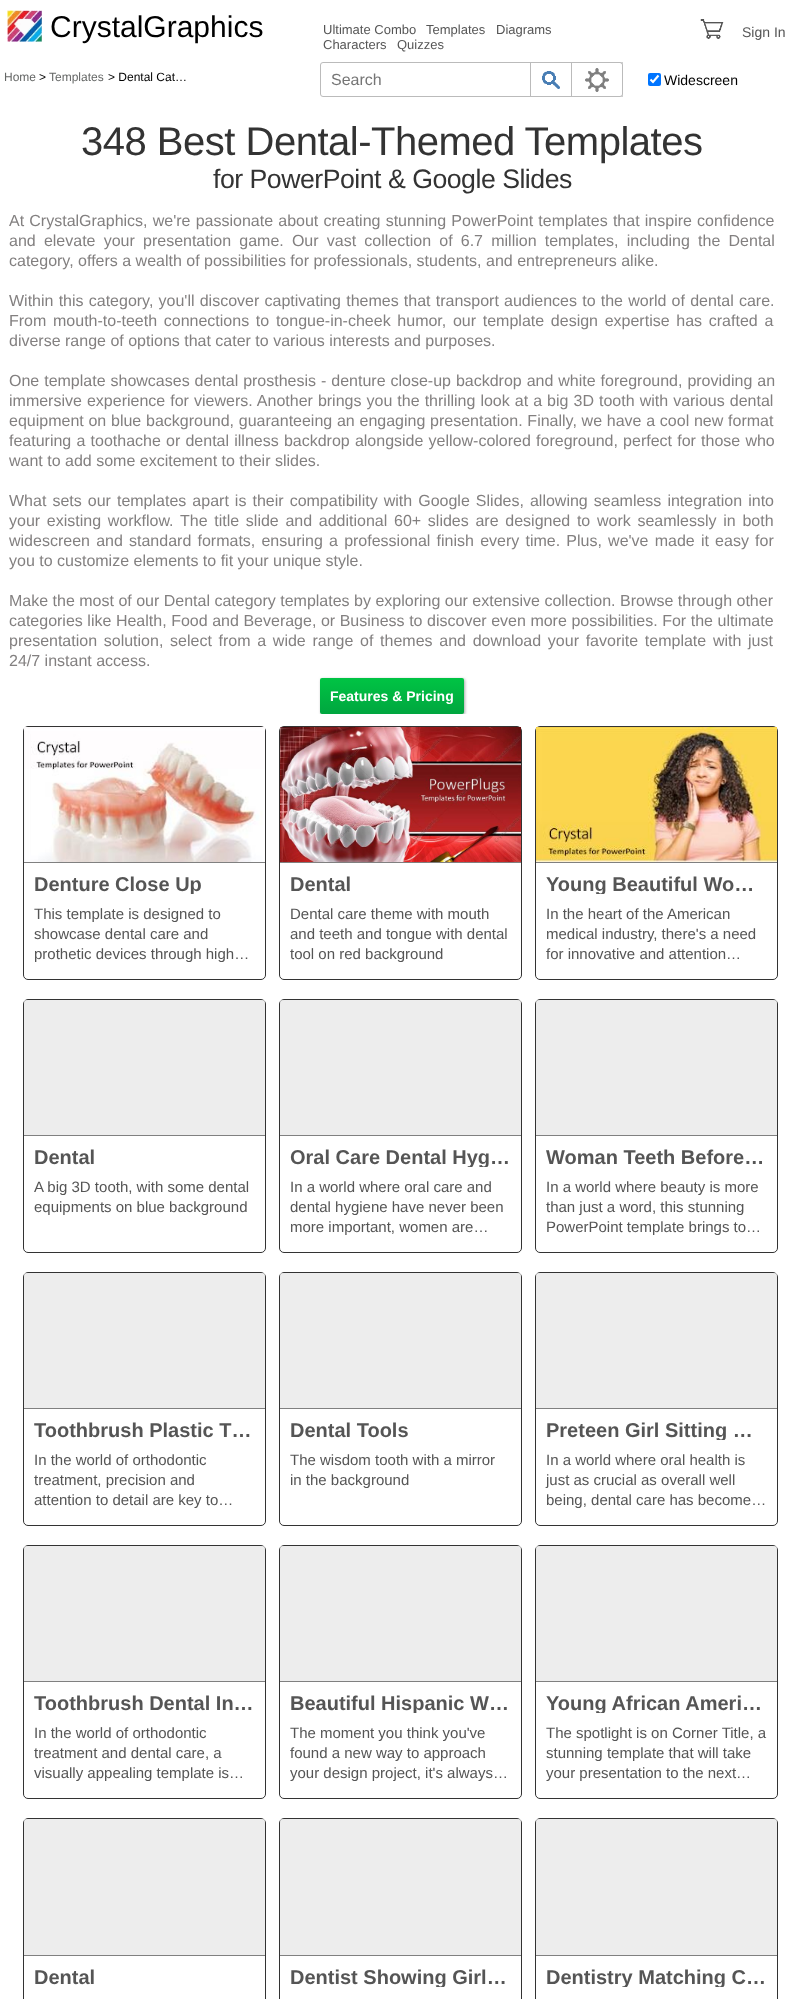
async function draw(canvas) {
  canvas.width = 799;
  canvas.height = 1999;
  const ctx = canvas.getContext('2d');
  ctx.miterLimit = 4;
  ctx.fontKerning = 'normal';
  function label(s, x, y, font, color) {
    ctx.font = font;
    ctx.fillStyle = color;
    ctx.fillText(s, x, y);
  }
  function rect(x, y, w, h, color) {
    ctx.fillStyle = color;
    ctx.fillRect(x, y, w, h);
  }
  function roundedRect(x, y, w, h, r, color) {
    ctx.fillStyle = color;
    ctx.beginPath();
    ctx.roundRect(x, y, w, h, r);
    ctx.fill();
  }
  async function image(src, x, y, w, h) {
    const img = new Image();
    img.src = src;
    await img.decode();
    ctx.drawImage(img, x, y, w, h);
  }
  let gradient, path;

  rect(0, 0, 799, 1999, '#fff');
  await image('assets/img1.png', 7, 10, 35, 32);
  label('CrystalGraphics', 50, 37, '30px Liberation Sans', '#000');
  label('Ultimate Combo', 323, 34, '13px Liberation Sans', '#555');
  label('Templates', 426, 34, '13px Liberation Sans', '#555');
  label('Diagrams', 496, 34, '13px Liberation Sans', '#555');
  label('Characters', 323, 49, '13px Liberation Sans', '#555');
  label('Quizzes', 397, 49, '13px Liberation Sans', '#555');
  await image('assets/img2.png', 700, 19, 24, 20);
  label('Sign In', 742, 37, '14px Liberation Sans', '#555');
  label('Home', 4, 81, '12px Liberation Sans', '#656766');
  label('>', 39, 81, '12px Liberation Sans', '#000');
  label('Templates', 49, 81, '12px Liberation Sans', '#656766');
  label('> Dental Cat…', 108, 81, '12px Liberation Sans', '#000');
  ctx.beginPath();
  ctx.roundRect(320.5, 62.5, 302, 34, [2.5, 0, 0, 2.5]);
  ctx.strokeStyle = '#bbb';
  ctx.stroke();
  label('Search', 331, 85, '16px Liberation Sans', '#757575');
  ctx.strokeRect(530.5, 62.5, 41, 34);
  await image('assets/img3.png', 542, 71, 18, 18);
  ctx.fillStyle = '#fff';
  ctx.beginPath();
  ctx.roundRect(572, 62, 51, 35, [0, 3, 3, 0]);
  ctx.fill();
  ctx.fillStyle = '#bbb';
  path = new Path2D('M572 62H620C622 62 623 63 623 65V94C623 96 622 97 620 97H572ZM572 63H620C621 63 622 64 622 65V94C622 95 621 96 620 96H572Z');
  ctx.fill(path, 'evenodd');
  await image('assets/img4.png', 585, 68, 24, 24);
  roundedRect(648, 73, 13, 13, 2, '#0075ff');
  path = new Path2D('M650.5 79.5L653 82L658.5 75.5');
  ctx.strokeStyle = '#fff';
  ctx.lineWidth = 2.1;
  ctx.stroke(path);
  label('Widescreen', 664, 85, '14px Liberation Sans', '#000');
  ctx.letterSpacing = '-0.5px';
  label('348 Best Dental-Themed Templates', 81, 155, '40px Liberation Sans', '#333');
  label('for PowerPoint & Google Slides', 213, 188, '26.7px Liberation Sans', '#333');
  ctx.letterSpacing = '0px';
  ctx.wordSpacing = '0.75px';
  label('At CrystalGraphics, we\'re passionate about creating stunning PowerPoint templates that inspire confidence', 9, 226, '16px Liberation Sans', '#838080');
  ctx.wordSpacing = '3.75px';
  label('and elevate your presentation game. Our vast collection of 6.7 million templates, including the Dental', 9, 246, '16px Liberation Sans', '#838080');
  ctx.wordSpacing = '0px';
  label('category, offers a wealth of possibilities for professionals, students, and entrepreneurs alike.', 9, 266, '16px Liberation Sans', '#838080');
  ctx.wordSpacing = '0.75px';
  label('Within this category, you\'ll discover captivating themes that transport audiences to the world of dental care.', 9, 306, '16px Liberation Sans', '#838080');
  ctx.wordSpacing = '2.25px';
  label('From mouth-to-teeth connections to tongue-in-cheek humor, our template design expertise has crafted a', 9, 326, '16px Liberation Sans', '#838080');
  ctx.wordSpacing = '0px';
  label('diverse range of options that cater to various interests and purposes.', 9, 346, '16px Liberation Sans', '#838080');
  ctx.wordSpacing = '0.5px';
  label('One template showcases dental prosthesis - denture close-up backdrop and white foreground, providing an', 9, 386, '16px Liberation Sans', '#838080');
  ctx.wordSpacing = '0.6px';
  label('immersive experience for viewers. Another brings you the thrilling look at a big 3D tooth with various dental', 9, 406, '16px Liberation Sans', '#838080');
  ctx.wordSpacing = '0.3px';
  label('equipment on blue background, guaranteeing an engaging presentation. Finally, we have a cool new format', 9, 426, '16px Liberation Sans', '#838080');
  ctx.wordSpacing = '0.75px';
  label('featuring a toothache or dental illness backdrop alongside yellow-colored foreground, perfect for those who', 9, 446, '16px Liberation Sans', '#838080');
  ctx.wordSpacing = '0px';
  label('want to add some excitement to their slides.', 9, 466, '16px Liberation Sans', '#838080');
  ctx.wordSpacing = '1.6px';
  label('What sets our templates apart is their compatibility with Google Slides, allowing seamless integration into', 9, 506, '16px Liberation Sans', '#838080');
  ctx.wordSpacing = '2.25px';
  label('your existing workflow. The title slide and additional 60+ slides are designed to work seamlessly in both', 9, 526, '16px Liberation Sans', '#838080');
  ctx.wordSpacing = '1.75px';
  label('widescreen and standard formats, ensuring a professional finish every time. Plus, we\'ve made it easy for', 9, 546, '16px Liberation Sans', '#838080');
  ctx.wordSpacing = '0px';
  label('you to customize elements to fit your unique style.', 9, 566, '16px Liberation Sans', '#838080');
  label('Make the most of our Dental category templates by exploring our extensive collection. Browse through other', 9, 606, '16px Liberation Sans', '#838080');
  ctx.wordSpacing = '0.1px';
  label('categories like Health, Food and Beverage, or Business to discover even more possibilities. For the ultimate', 9, 626, '16px Liberation Sans', '#838080');
  ctx.wordSpacing = '2.25px';
  label('presentation solution, select from a wide range of themes and download your favorite template with just', 9, 646, '16px Liberation Sans', '#838080');
  ctx.wordSpacing = '0px';
  label('24/7 instant access.', 9, 666, '16px Liberation Sans', '#838080');
  ctx.save();
  ctx.beginPath();
  ctx.rect(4, 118, 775, 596);
  ctx.clip();
  ctx.fillStyle = '#aaa';
  ctx.filter = 'blur(1.5px)';
  ctx.beginPath();
  ctx.roundRect(321, 679, 144, 36, 2);
  ctx.fill();
  ctx.filter = 'none';
  ctx.restore();
  gradient = ctx.createLinearGradient(392, 678, 392, 714);
  gradient.addColorStop(0, '#00c444');
  gradient.addColorStop(1, '#00a63f');
  ctx.fillStyle = gradient;
  ctx.beginPath();
  ctx.roundRect(320, 678, 144, 36, 2);
  ctx.fill();
  label('Features & Pricing', 330, 701, 'bold 14px Liberation Sans', '#fff');
  ctx.beginPath();
  ctx.roundRect(23.5, 726.5, 242, 253, 4.5);
  ctx.strokeStyle = '#333';
  ctx.lineWidth = 1;
  ctx.stroke();
  rect(24, 862, 241, 1, '#808080');
  await image('assets/img5.png', 24, 727, 241, 135);
  ctx.save();
  ctx.beginPath();
  ctx.rect(34, 873, 221, 21);
  ctx.clip();
  label('Denture Close Up', 34, 891, 'bold 20px Liberation Sans', '#555');
  ctx.restore();
  label('This template is designed to', 34, 919, '15px Liberation Sans', '#555');
  label('showcase dental care and', 34, 939, '15px Liberation Sans', '#555');
  label('prothetic devices through high…', 34, 959, '15px Liberation Sans', '#555');
  ctx.beginPath();
  ctx.roundRect(279.5, 726.5, 242, 253, 4.5);
  ctx.stroke();
  rect(280, 862, 241, 1, '#808080');
  await image('assets/img6.png', 280, 727, 241, 135);
  label('Dental', 290, 891, 'bold 20px Liberation Sans', '#555');
  label('Dental care theme with mouth', 290, 919, '15px Liberation Sans', '#555');
  label('and teeth and tongue with dental', 290, 939, '15px Liberation Sans', '#555');
  label('tool on red background', 290, 959, '15px Liberation Sans', '#555');
  ctx.beginPath();
  ctx.roundRect(535.5, 726.5, 242, 253, 4.5);
  ctx.stroke();
  rect(536, 862, 241, 1, '#808080');
  await image('assets/img7.png', 536, 727, 241, 135);
  ctx.save();
  ctx.beginPath();
  ctx.rect(546, 873, 221, 21);
  ctx.clip();
  label('Young Beautiful Wo…', 546, 891, 'bold 20px Liberation Sans', '#555');
  ctx.restore();
  label('In the heart of the American', 546, 919, '15px Liberation Sans', '#555');
  label('medical industry, there\'s a need', 546, 939, '15px Liberation Sans', '#555');
  label('for innovative and attention…', 546, 959, '15px Liberation Sans', '#555');
  ctx.beginPath();
  ctx.roundRect(23.5, 999.5, 242, 253, 4.5);
  ctx.stroke();
  rect(24, 1000, 241, 135, '#e6e6e6b3');
  rect(24, 1135, 241, 1, '#808080');
  label('Dental', 34, 1164, 'bold 20px Liberation Sans', '#555');
  label('A big 3D tooth, with some dental', 34, 1192, '15px Liberation Sans', '#555');
  label('equipments on blue background', 34, 1212, '15px Liberation Sans', '#555');
  ctx.beginPath();
  ctx.roundRect(279.5, 999.5, 242, 253, 4.5);
  ctx.stroke();
  rect(280, 1000, 241, 135, '#e6e6e6b3');
  rect(280, 1135, 241, 1, '#808080');
  ctx.save();
  ctx.beginPath();
  ctx.rect(290, 1146, 221, 21);
  ctx.clip();
  label('Oral Care Dental Hyg…', 290, 1164, 'bold 20px Liberation Sans', '#555');
  ctx.restore();
  label('In a world where oral care and', 290, 1192, '15px Liberation Sans', '#555');
  label('dental hygiene have never been', 290, 1212, '15px Liberation Sans', '#555');
  label('more important, women are…', 290, 1232, '15px Liberation Sans', '#555');
  ctx.beginPath();
  ctx.roundRect(535.5, 999.5, 242, 253, 4.5);
  ctx.stroke();
  rect(536, 1000, 241, 135, '#e6e6e6b3');
  rect(536, 1135, 241, 1, '#808080');
  label('Woman Teeth Before…', 546, 1164, 'bold 20px Liberation Sans', '#555');
  label('In a world where beauty is more', 546, 1192, '15px Liberation Sans', '#555');
  label('than just a word, this stunning', 546, 1212, '15px Liberation Sans', '#555');
  label('PowerPoint template brings to…', 546, 1232, '15px Liberation Sans', '#555');
  ctx.beginPath();
  ctx.roundRect(23.5, 1272.5, 242, 253, 4.5);
  ctx.stroke();
  rect(24, 1273, 241, 135, '#e6e6e6b3');
  rect(24, 1408, 241, 1, '#808080');
  label('Toothbrush Plastic T…', 34, 1437, 'bold 20px Liberation Sans', '#555');
  label('In the world of orthodontic', 34, 1465, '15px Liberation Sans', '#555');
  label('treatment, precision and', 34, 1485, '15px Liberation Sans', '#555');
  label('attention to detail are key to…', 34, 1505, '15px Liberation Sans', '#555');
  ctx.beginPath();
  ctx.roundRect(279.5, 1272.5, 242, 253, 4.5);
  ctx.stroke();
  rect(280, 1273, 241, 135, '#e6e6e6b3');
  rect(280, 1408, 241, 1, '#808080');
  label('Dental Tools', 290, 1437, 'bold 20px Liberation Sans', '#555');
  label('The wisdom tooth with a mirror', 290, 1465, '15px Liberation Sans', '#555');
  label('in the background', 290, 1485, '15px Liberation Sans', '#555');
  ctx.beginPath();
  ctx.roundRect(535.5, 1272.5, 242, 253, 4.5);
  ctx.stroke();
  rect(536, 1273, 241, 135, '#e6e6e6b3');
  rect(536, 1408, 241, 1, '#808080');
  ctx.save();
  ctx.beginPath();
  ctx.rect(546, 1419, 221, 21);
  ctx.clip();
  label('Preteen Girl Sitting …', 546, 1437, 'bold 20px Liberation Sans', '#555');
  ctx.restore();
  label('In a world where oral health is', 546, 1465, '15px Liberation Sans', '#555');
  label('just as crucial as overall well', 546, 1485, '15px Liberation Sans', '#555');
  label('being, dental care has become…', 546, 1505, '15px Liberation Sans', '#555');
  ctx.beginPath();
  ctx.roundRect(23.5, 1545.5, 242, 253, 4.5);
  ctx.stroke();
  rect(24, 1546, 241, 135, '#e6e6e6b3');
  rect(24, 1681, 241, 1, '#808080');
  label('Toothbrush Dental In…', 34, 1710, 'bold 20px Liberation Sans', '#555');
  label('In the world of orthodontic', 34, 1738, '15px Liberation Sans', '#555');
  label('treatment and dental care, a', 34, 1758, '15px Liberation Sans', '#555');
  label('visually appealing template is…', 34, 1778, '15px Liberation Sans', '#555');
  ctx.beginPath();
  ctx.roundRect(279.5, 1545.5, 242, 253, 4.5);
  ctx.stroke();
  rect(280, 1546, 241, 135, '#e6e6e6b3');
  rect(280, 1681, 241, 1, '#808080');
  ctx.save();
  ctx.beginPath();
  ctx.rect(290, 1692, 221, 21);
  ctx.clip();
  label('Beautiful Hispanic W…', 290, 1710, 'bold 20px Liberation Sans', '#555');
  ctx.restore();
  label('The moment you think you\'ve', 290, 1738, '15px Liberation Sans', '#555');
  label('found a new way to approach', 290, 1758, '15px Liberation Sans', '#555');
  label('your design project, it\'s always…', 290, 1778, '15px Liberation Sans', '#555');
  ctx.beginPath();
  ctx.roundRect(535.5, 1545.5, 242, 253, 4.5);
  ctx.stroke();
  rect(536, 1546, 241, 135, '#e6e6e6b3');
  rect(536, 1681, 241, 1, '#808080');
  ctx.save();
  ctx.beginPath();
  ctx.rect(546, 1692, 221, 21);
  ctx.clip();
  label('Young African Ameri…', 546, 1710, 'bold 20px Liberation Sans', '#555');
  ctx.restore();
  label('The spotlight is on Corner Title, a', 546, 1738, '15px Liberation Sans', '#555');
  label('stunning template that will take', 546, 1758, '15px Liberation Sans', '#555');
  label('your presentation to the next…', 546, 1778, '15px Liberation Sans', '#555');
  ctx.beginPath();
  ctx.roundRect(23.5, 1818.5, 242, 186, 4.5);
  ctx.stroke();
  rect(24, 1819, 241, 136, '#e6e6e6b3');
  rect(24, 1955, 241, 1, '#808080');
  label('Dental', 34, 1984, 'bold 20px Liberation Sans', '#555');
  ctx.beginPath();
  ctx.roundRect(279.5, 1818.5, 242, 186, 4.5);
  ctx.stroke();
  rect(280, 1819, 241, 136, '#e6e6e6b3');
  rect(280, 1955, 241, 1, '#808080');
  ctx.save();
  ctx.beginPath();
  ctx.rect(290, 1966, 221, 21);
  ctx.clip();
  label('Dentist Showing Girl…', 290, 1984, 'bold 20px Liberation Sans', '#555');
  ctx.restore();
  ctx.beginPath();
  ctx.roundRect(535.5, 1818.5, 242, 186, 4.5);
  ctx.stroke();
  rect(536, 1819, 241, 136, '#e6e6e6b3');
  rect(536, 1955, 241, 1, '#808080');
  ctx.save();
  ctx.beginPath();
  ctx.rect(546, 1966, 221, 21);
  ctx.clip();
  label('Dentistry Matching C…', 546, 1984, 'bold 20px Liberation Sans', '#555');
  ctx.restore();
}

draw(document.querySelector('canvas'));
